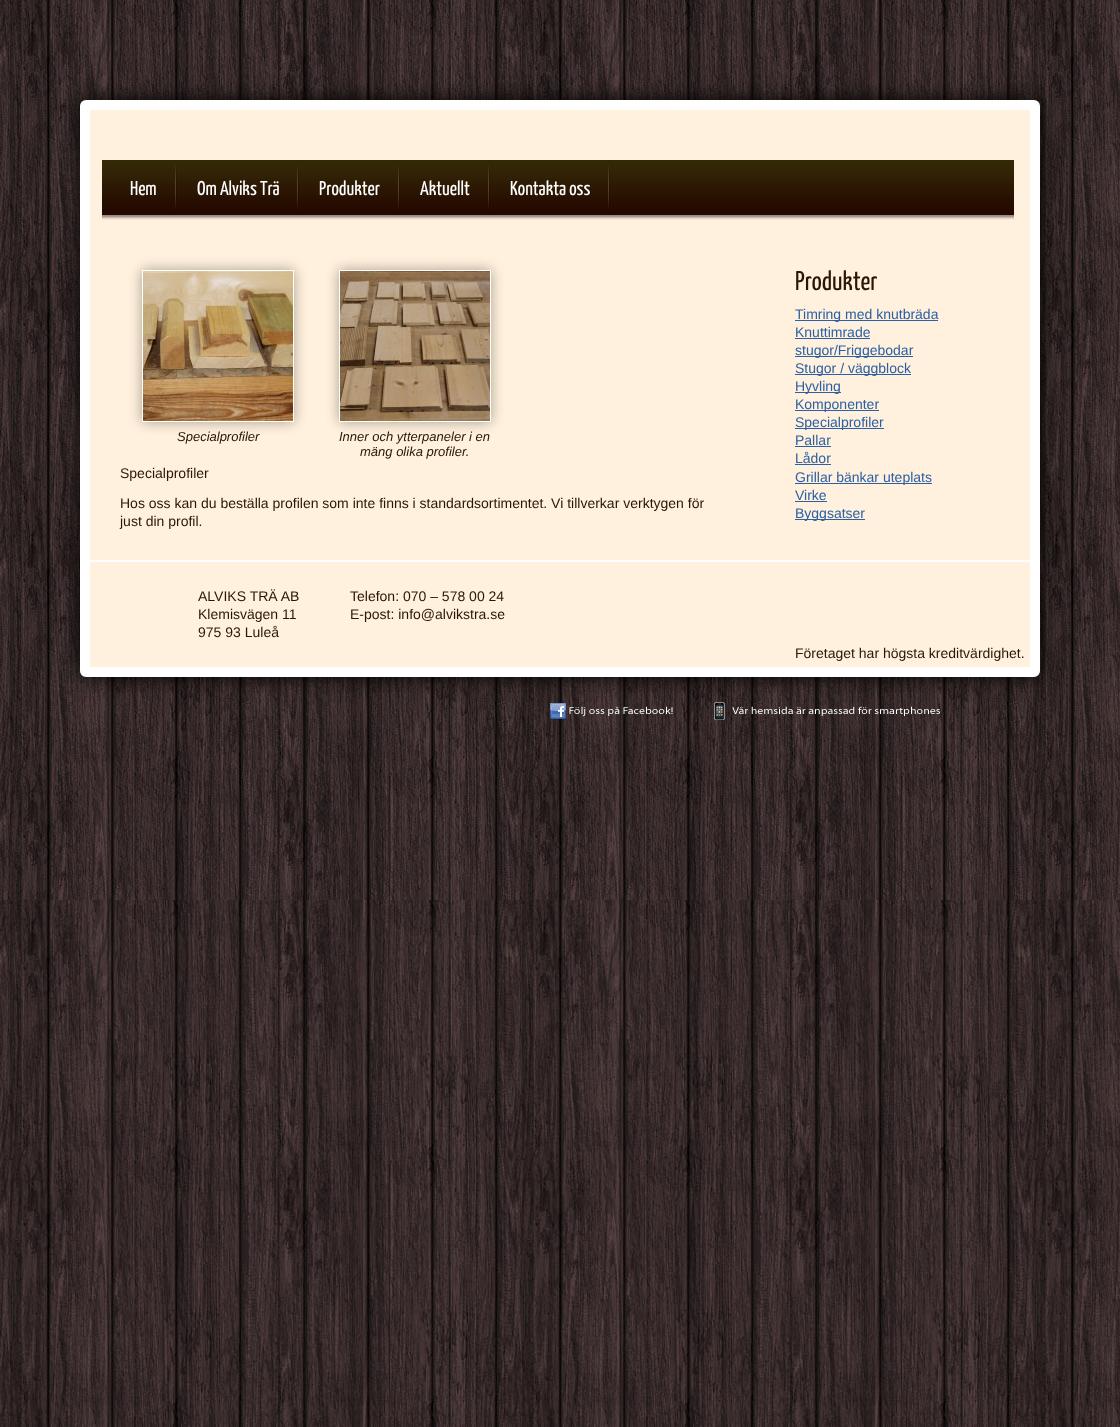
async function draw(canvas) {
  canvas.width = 1120;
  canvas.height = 1427;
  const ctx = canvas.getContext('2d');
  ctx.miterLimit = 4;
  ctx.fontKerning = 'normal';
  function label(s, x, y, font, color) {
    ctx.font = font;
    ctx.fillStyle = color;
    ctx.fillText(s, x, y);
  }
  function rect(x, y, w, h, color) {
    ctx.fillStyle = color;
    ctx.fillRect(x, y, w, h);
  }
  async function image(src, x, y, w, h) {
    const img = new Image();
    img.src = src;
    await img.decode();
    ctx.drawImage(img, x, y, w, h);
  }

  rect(0, 0, 1120, 1427, '#fff');
  await image('assets/img1.png', 0, 0, 1120, 1427);
  ctx.fillStyle = '#000';
  ctx.filter = 'blur(10px)';
  ctx.beginPath();
  ctx.roundRect(80, 100, 960, 577, 6);
  ctx.fill();
  ctx.filter = 'none';
  ctx.fillStyle = '#fff1dd';
  ctx.beginPath();
  ctx.roundRect(85, 105, 950, 567, 1);
  ctx.fill();
  ctx.strokeStyle = '#fff';
  ctx.lineWidth = 10;
  ctx.stroke();
  await image('assets/img2.png', 102, 160, 912, 60);
  await image('assets/img3.png', 175, 165, 2, 44);
  label('Hem', 130, 195, '20px Yanone Kaffeesatz', '#fff');
  await image('assets/img3.png', 297, 165, 2, 44);
  label('Om Alviks Trä', 197, 195, '20px Yanone Kaffeesatz', '#fff');
  await image('assets/img3.png', 398, 165, 2, 44);
  label('Produkter', 319, 195, '20px Yanone Kaffeesatz', '#fff');
  await image('assets/img3.png', 488, 165, 2, 44);
  label('Aktuellt', 420, 195, '20px Yanone Kaffeesatz', '#fff');
  await image('assets/img3.png', 608, 165, 2, 44);
  label('Kontakta oss', 510, 195, '20px Yanone Kaffeesatz', '#fff');
  ctx.fillStyle = '#00000059';
  ctx.filter = 'blur(6.5px)';
  ctx.beginPath();
  ctx.rect(142, 270, 152, 152);
  ctx.fill();
  ctx.filter = 'none';
  ctx.lineWidth = 1;
  ctx.strokeRect(142.5, 270.5, 151, 151);
  await image('assets/img4.png', 143, 271, 150, 150);
  label('Specialprofiler', 177, 441, 'italic 13px Liberation Sans', '#2b1505');
  ctx.fillStyle = '#00000059';
  ctx.filter = 'blur(6.5px)';
  ctx.beginPath();
  ctx.rect(339, 270, 152, 152);
  ctx.fill();
  ctx.filter = 'none';
  ctx.strokeRect(339.5, 270.5, 151, 151);
  await image('assets/img5.png', 340, 271, 150, 150);
  label('Inner och ytterpaneler i en', 339, 441, 'italic 13px Liberation Sans', '#2b1505');
  label('mäng olika profiler.', 360, 456, 'italic 13px Liberation Sans', '#2b1505');
  label('Specialprofiler', 120, 478, '14px Liberation Sans', '#2b1505');
  label('Hos oss kan du beställa profilen som inte finns i standardsortimentet. Vi tillverkar verktygen för', 120, 508, '14px Liberation Sans', '#2b1505');
  label('just din profil.', 120, 526, '14px Liberation Sans', '#2b1505');
  label('Produkter', 795, 290, '27px Yanone Kaffeesatz', '#2b1505');
  rect(795, 320, 143, 1, '#2c60a3');
  label('Timring med knutbräda', 795, 319, '14px Liberation Sans', '#2c60a3');
  label('Knuttimrade', 795, 337, '14px Liberation Sans', '#2c60a3');
  rect(795, 338, 75, 1, '#2c60a3');
  rect(795, 356, 118, 1, '#2c60a3');
  label('stugor/Friggebodar', 795, 355, '14px Liberation Sans', '#2c60a3');
  rect(795, 374, 116, 1, '#2c60a3');
  label('Stugor / väggblock', 795, 373, '14px Liberation Sans', '#2c60a3');
  rect(795, 392, 46, 1, '#2c60a3');
  label('Hyvling', 795, 391, '14px Liberation Sans', '#2c60a3');
  rect(795, 410, 84, 1, '#2c60a3');
  label('Komponenter', 795, 409, '14px Liberation Sans', '#2c60a3');
  rect(795, 428, 89, 1, '#2c60a3');
  label('Specialprofiler', 795, 427, '14px Liberation Sans', '#2c60a3');
  label('Pallar', 795, 445, '14px Liberation Sans', '#2c60a3');
  rect(795, 446, 36, 1, '#2c60a3');
  label('Lådor', 795, 463, '14px Liberation Sans', '#2c60a3');
  rect(795, 464, 36, 1, '#2c60a3');
  rect(795, 483, 137, 1, '#2c60a3');
  label('Grillar bänkar uteplats', 795, 482, '14px Liberation Sans', '#2c60a3');
  label('Virke', 795, 500, '14px Liberation Sans', '#2c60a3');
  rect(795, 501, 32, 1, '#2c60a3');
  rect(795, 519, 70, 1, '#2c60a3');
  label('Byggsatser', 795, 518, '14px Liberation Sans', '#2c60a3');
  rect(90, 560, 940, 2, '#fff');
  label('ALVIKS TRÄ AB', 198, 601, '14px Liberation Sans', '#2b1505');
  label('Klemisvägen 11', 198, 619, '14px Liberation Sans', '#2b1505');
  label('975 93 Luleå', 198, 637, '14px Liberation Sans', '#2b1505');
  label('Telefon: 070 – 578 00 24', 350, 601, '14px Liberation Sans', '#2b1505');
  label('E-post: info@alvikstra.se', 350, 619, '14px Liberation Sans', '#2b1505');
  label('Företaget har högsta kreditvärdighet.', 795, 658, '14px Liberation Sans', '#2b1505');
  await image('assets/img6.png', 550, 703, 123, 17);
  await image('assets/img7.png', 714, 702, 226, 18);
}

draw(document.querySelector('canvas'));
